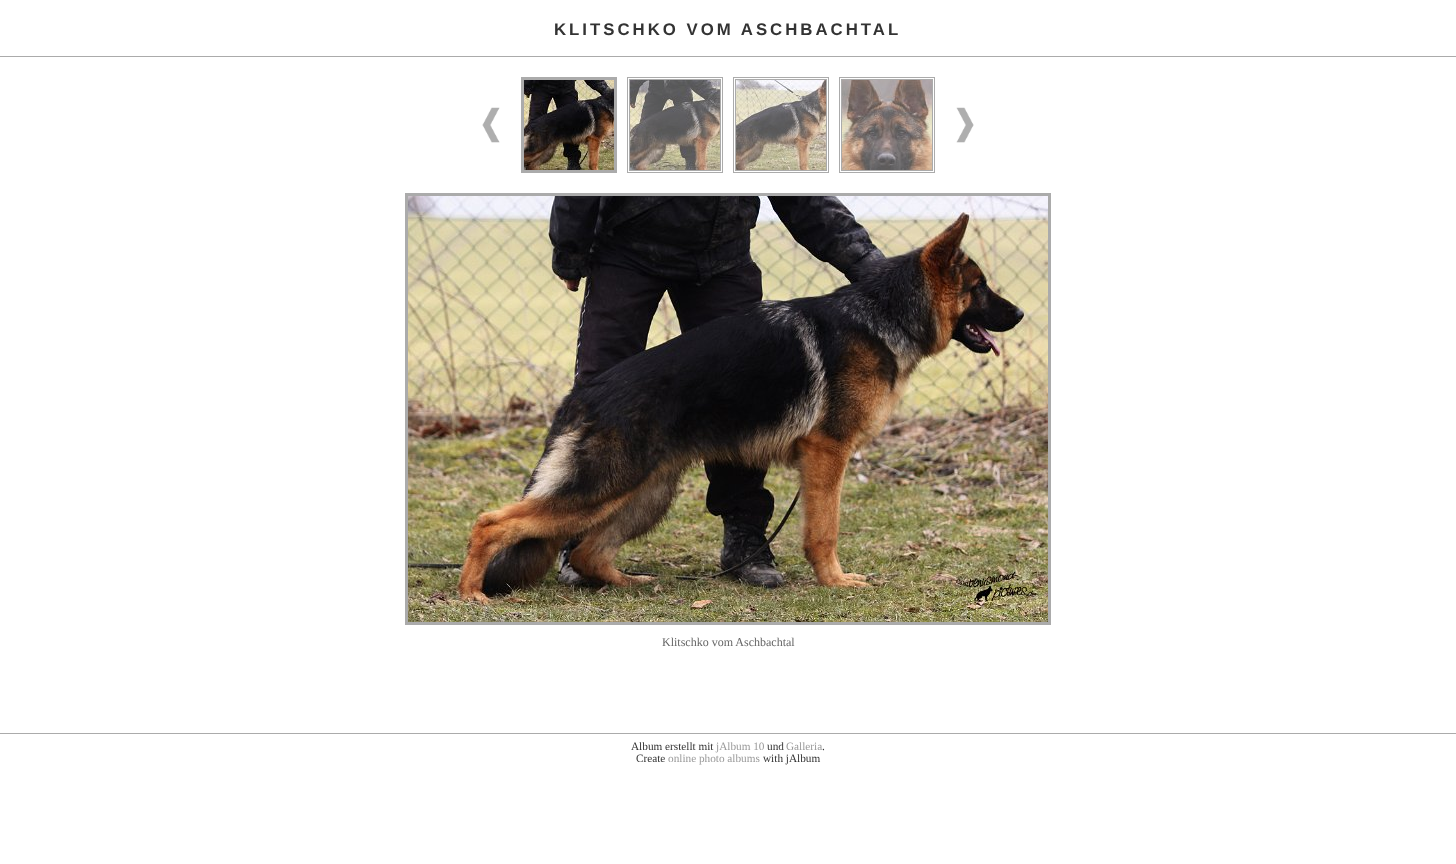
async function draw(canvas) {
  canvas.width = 1456;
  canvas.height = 864;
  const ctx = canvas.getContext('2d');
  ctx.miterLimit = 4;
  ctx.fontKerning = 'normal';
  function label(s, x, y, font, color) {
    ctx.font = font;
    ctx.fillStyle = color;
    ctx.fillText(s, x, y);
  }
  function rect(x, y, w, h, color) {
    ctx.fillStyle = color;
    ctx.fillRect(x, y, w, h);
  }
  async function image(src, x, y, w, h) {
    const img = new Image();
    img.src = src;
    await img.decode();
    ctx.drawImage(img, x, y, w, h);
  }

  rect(0, 0, 1456, 864, '#fff');
  rect(0, 56, 1456, 1, '#ababab');
  ctx.letterSpacing = '3px';
  label('KLITSCHKO VOM ASCHBACHTAL', 554, 35, 'bold 16.8px Liberation Sans', '#333');
  await image('assets/img1.png', 482, 107, 18, 36);
  ctx.strokeStyle = '#ababab';
  ctx.lineWidth = 3;
  ctx.strokeRect(522.5, 78.5, 93, 93);
  await image('assets/img2.png', 524, 80, 90, 90);
  ctx.lineWidth = 1;
  ctx.strokeRect(627.5, 77.5, 95, 95);
  ctx.strokeRect(629.5, 79.5, 91, 91);
  await image('assets/img3.png', 630, 80, 90, 90);
  ctx.strokeRect(733.5, 77.5, 95, 95);
  ctx.strokeRect(735.5, 79.5, 91, 91);
  await image('assets/img4.png', 736, 80, 90, 90);
  ctx.strokeRect(839.5, 77.5, 95, 95);
  ctx.strokeRect(841.5, 79.5, 91, 91);
  await image('assets/img5.png', 842, 80, 90, 90);
  await image('assets/img6.png', 956, 107, 18, 36);
  ctx.lineWidth = 3;
  ctx.strokeRect(406.5, 194.5, 643, 429);
  await image('assets/img7.png', 408, 196, 640, 426);
  ctx.letterSpacing = '0px';
  label('Klitschko vom Aschbachtal', 662, 646, '12px Liberation Serif', '#666');
  rect(0, 733, 1456, 1, '#ababab');
  label('Album erstellt mit', 631, 750, '11.25px Liberation Serif', '#333');
  label('jAlbum 10', 716, 750, '11.25px Liberation Serif', '#9a9a9a');
  label('und', 767, 750, '11.25px Liberation Serif', '#333');
  label('Galleria', 786, 750, '11.25px Liberation Serif', '#9a9a9a');
  label('.', 822, 750, '11.25px Liberation Serif', '#333');
  label('Create', 636, 762, '11.25px Liberation Serif', '#333');
  label('online photo albums', 668, 762, '11.25px Liberation Serif', '#9a9a9a');
  label('with jAlbum', 763, 762, '11.25px Liberation Serif', '#333');
}

draw(document.querySelector('canvas'));
